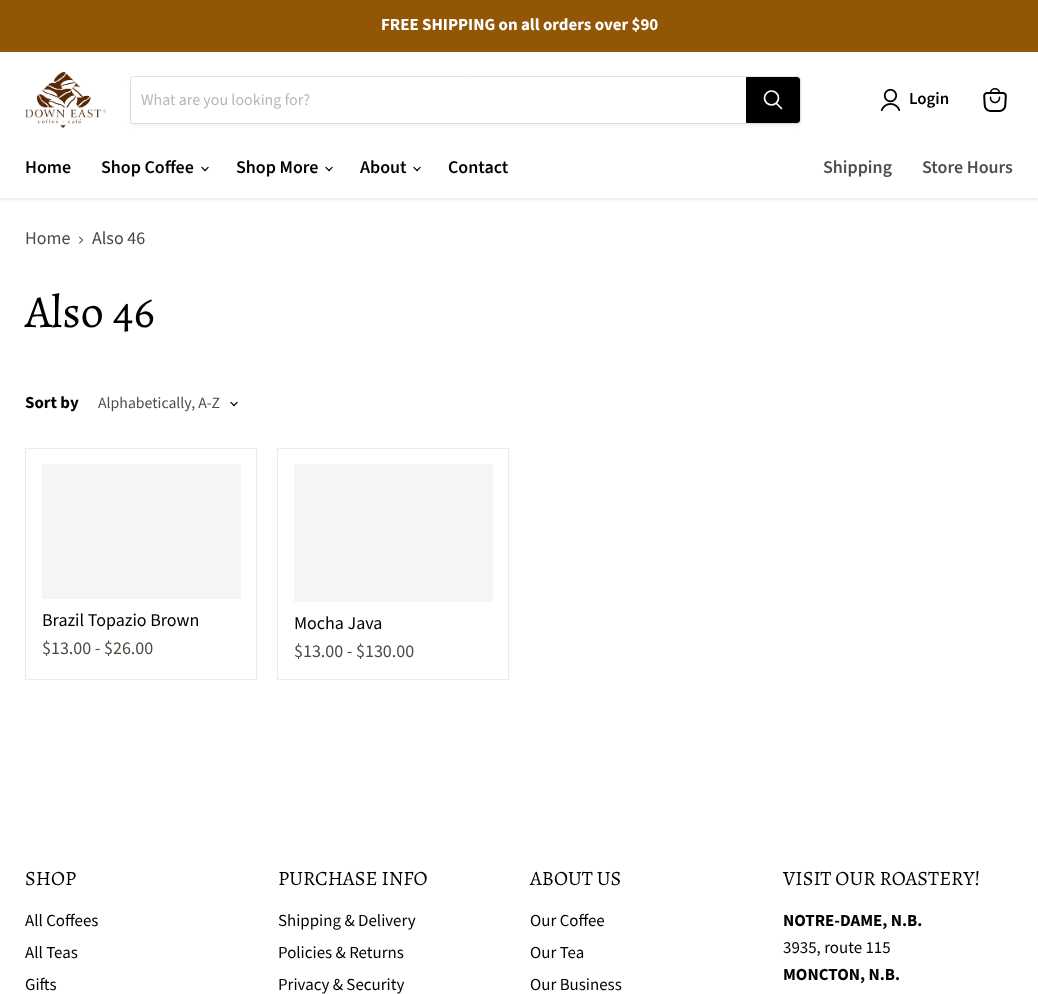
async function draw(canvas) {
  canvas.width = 1038;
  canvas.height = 994;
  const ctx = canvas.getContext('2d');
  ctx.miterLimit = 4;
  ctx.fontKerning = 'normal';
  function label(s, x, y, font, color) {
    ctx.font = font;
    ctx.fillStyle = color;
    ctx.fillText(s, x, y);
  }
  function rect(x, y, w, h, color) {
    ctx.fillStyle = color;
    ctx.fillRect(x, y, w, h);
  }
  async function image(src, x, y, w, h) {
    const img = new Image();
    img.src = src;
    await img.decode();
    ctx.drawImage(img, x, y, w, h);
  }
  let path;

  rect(0, 0, 1038, 994, '#fff');
  rect(0, 0, 1038, 52, '#915706');
  label('FREE SHIPPING on all orders over $90', 381, 30, 'bold 16.9px Source Sans Pro', '#fff');
  ctx.save();
  path = new Path2D('M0 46H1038V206H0ZM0 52H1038V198H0Z');
  ctx.clip(path, 'evenodd');
  ctx.fillStyle = '#80808040';
  ctx.filter = 'blur(2px)';
  ctx.beginPath();
  ctx.rect(0, 53, 1038, 146);
  ctx.fill();
  ctx.filter = 'none';
  ctx.restore();
  await image('assets/img1.png', 25, 72, 81, 56);
  ctx.fillStyle = '#8080801c';
  ctx.filter = 'blur(1.5px)';
  ctx.beginPath();
  ctx.roundRect(130, 78, 671, 48, 4);
  ctx.fill();
  ctx.filter = 'none';
  ctx.beginPath();
  ctx.roundRect(130.5, 76.5, 670, 47, 3.5);
  ctx.strokeStyle = '#80808033';
  ctx.stroke();
  ctx.fillStyle = '#fff';
  ctx.beginPath();
  ctx.roundRect(131, 77, 615, 46, [3, 0, 0, 3]);
  ctx.fill();
  label('What are you looking for?', 141, 105, '16px Source Sans Pro', '#b8b8b8');
  ctx.fillStyle = '#000';
  ctx.beginPath();
  ctx.roundRect(746.5, 77.5, 53, 45, [0, 2.5, 2.5, 0]);
  ctx.fill();
  ctx.strokeStyle = '#000';
  ctx.stroke();
  path = new Path2D('M781.5 108.5L776.5 103.5');
  ctx.strokeStyle = '#fff';
  ctx.lineWidth = 1.7;
  ctx.lineCap = 'round';
  ctx.stroke(path);
  ctx.beginPath();
  ctx.arc(771.5, 98, 7, 0, 2 * Math.PI);
  ctx.stroke();
  await image('assets/img2.png', 880, 88, 20, 24);
  label('Login', 909, 104, '600 16.9px Source Sans Pro', '#000');
  await image('assets/img3.png', 983, 88, 24, 24);
  label('Home', 25, 173, '600 18px Source Sans Pro', '#000');
  label('Shop Coffee', 101, 173, '600 18px Source Sans Pro', '#000');
  await image('assets/img4.png', 201, 166, 8, 6);
  label('Shop More', 236, 173, '600 18px Source Sans Pro', '#000');
  await image('assets/img4.png', 325, 166, 8, 6);
  label('About', 360, 173, '600 18px Source Sans Pro', '#000');
  await image('assets/img4.png', 413, 166, 8, 6);
  label('Contact', 448, 173, '600 18px Source Sans Pro', '#000');
  label('Shipping', 823, 173, '600 18px Source Sans Pro', '#4d4d4d');
  label('Store Hours', 922, 173, '600 18px Source Sans Pro', '#4d4d4d');
  label('Home', 25, 244, '18px Source Sans Pro', '#494d41');
  await image('assets/img5.png', 79, 236, 5, 8);
  label('Also 46', 92, 244, '18px Source Sans Pro', '#464646');
  label('Also 46', 25, 327, '46px Alegreya', '#000');
  label('Sort by', 25, 408, 'bold 16.9px Source Sans Pro', '#000');
  label('Alphabetically, A-Z', 98, 408, '15.75px Source Sans Pro', '#4d4d4d');
  await image('assets/img4.png', 230, 401, 8, 6);
  ctx.strokeStyle = '#ebebeb';
  ctx.lineWidth = 1;
  ctx.strokeRect(25.5, 448.5, 231, 231);
  rect(42, 464, 199, 135, '#f5f5f5');
  label('Brazil Topazio Brown', 42, 626, '18px Source Sans Pro', '#000');
  label('$13.00 - $26.00', 42, 654, '18px Source Sans Pro', '#494d41');
  ctx.strokeRect(277.5, 448.5, 231, 231);
  rect(294, 464, 199, 138, '#f5f5f5');
  label('Mocha Java', 294, 629, '18px Source Sans Pro', '#000');
  label('$13.00 - $130.00', 294, 657, '18px Source Sans Pro', '#494d41');
  label('SHOP', 25, 885, '20.25px Alegreya', '#000');
  label('All Coffees', 25, 926, '16.9px Source Sans Pro', '#000');
  label('All Teas', 25, 958, '16.9px Source Sans Pro', '#000');
  label('Gifts', 25, 990, '16.9px Source Sans Pro', '#000');
  label('PURCHASE INFO', 278, 885, '20.25px Alegreya', '#000');
  label('Shipping & Delivery', 278, 926, '16.9px Source Sans Pro', '#000');
  label('Policies & Returns', 278, 958, '16.9px Source Sans Pro', '#000');
  label('Privacy & Security', 278, 990, '16.9px Source Sans Pro', '#000');
  label('ABOUT US', 530, 885, '20.25px Alegreya', '#000');
  label('Our Coffee', 530, 926, '16.9px Source Sans Pro', '#000');
  label('Our Tea', 530, 958, '16.9px Source Sans Pro', '#000');
  label('Our Business', 530, 990, '16.9px Source Sans Pro', '#000');
  label('VISIT OUR ROASTERY!', 783, 885, '20.25px Alegreya', '#000');
  label('NOTRE-DAME, N.B.', 783, 926, 'bold 16.9px Source Sans Pro', '#000');
  label('3935, route 115', 783, 953, '16.9px Source Sans Pro', '#000');
  label('MONCTON, N.B.', 783, 980, 'bold 16.9px Source Sans Pro', '#000');
}

draw(document.querySelector('canvas'));
